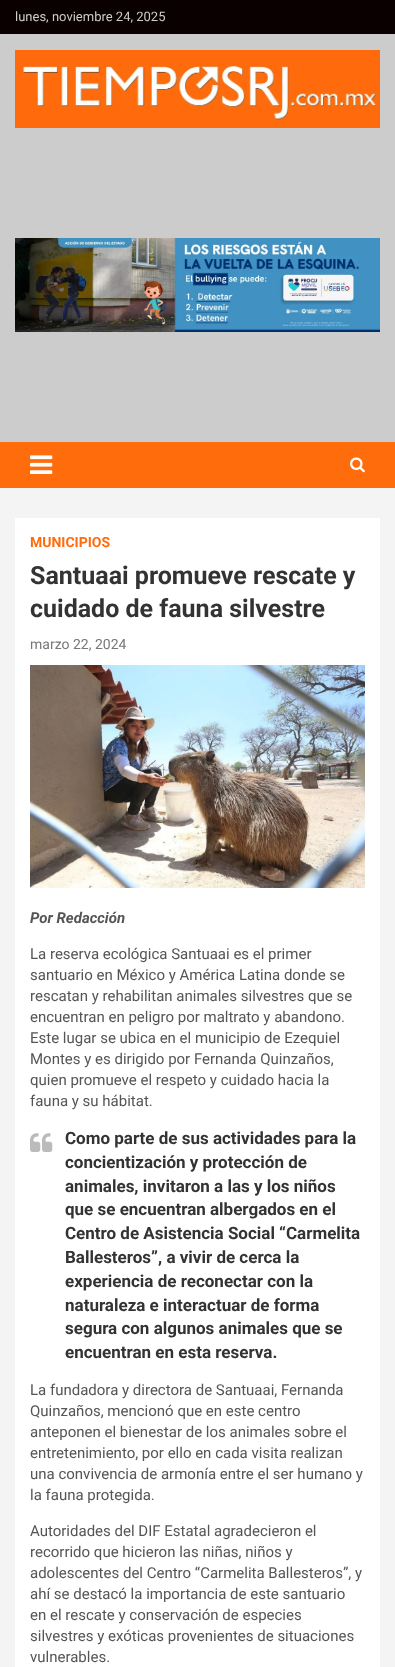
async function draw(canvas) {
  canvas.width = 395;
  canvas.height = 1667;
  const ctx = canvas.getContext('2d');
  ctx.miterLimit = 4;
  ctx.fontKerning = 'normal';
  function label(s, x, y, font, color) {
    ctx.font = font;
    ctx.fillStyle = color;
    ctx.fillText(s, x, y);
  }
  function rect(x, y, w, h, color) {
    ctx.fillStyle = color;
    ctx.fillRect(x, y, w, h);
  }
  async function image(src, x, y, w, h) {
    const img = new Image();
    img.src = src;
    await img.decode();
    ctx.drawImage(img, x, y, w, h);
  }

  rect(0, 0, 395, 1667, '#f4f4f4');
  rect(0, 0, 395, 34, '#0a0000');
  label('lunes, noviembre 24, 2025', 15, 21, '13px Roboto', '#ccc');
  rect(0, 34, 395, 408, '#ccc');
  await image('assets/img1.png', 15, 50, 365, 78);
  await image('assets/img2.png', 15, 238, 365, 94);
  rect(0, 442, 395, 46, '#fe6c0c');
  await image('assets/img3.png', 30, 455, 23, 19);
  await image('assets/img4.png', 350, 457, 15, 16);
  rect(15, 518, 365, 1149, '#fff');
  label('MUNICIPIOS', 30, 547, 'bold 14px Roboto', '#fe6c0c');
  label('Santuaai promueve rescate y', 30, 584, 'bold 25px Roboto', '#333');
  label('cuidado de fauna silvestre', 30, 617, 'bold 25px Roboto', '#333');
  label('marzo 22, 2024', 30, 649, '14px Roboto', '#777');
  await image('assets/img5.png', 30, 665, 335, 223);
  label('Por Redacción', 30, 923, 'italic bold 15px Roboto', '#555');
  label('La reserva ecológica Santuaai es el primer', 30, 959, '15px Roboto', '#555');
  label('santuario en México y América Latina donde se', 30, 980, '15px Roboto', '#555');
  label('rescatan y rehabilitan animales silvestres que se', 30, 1001, '15px Roboto', '#555');
  label('encuentran en peligro por maltrato y abandono.', 30, 1022, '15px Roboto', '#555');
  label('Este lugar se ubica en el municipio de Ezequiel', 30, 1043, '15px Roboto', '#555');
  label('Montes y es dirigido por Fernanda Quinzaños,', 30, 1064, '15px Roboto', '#555');
  label('quien promueve el respeto y cuidado hacia la', 30, 1085, '15px Roboto', '#555');
  label('fauna y su hábitat.', 30, 1106, '15px Roboto', '#555');
  await image('assets/img6.png', 30, 1133, 23, 19);
  label('Como parte de sus actividades para la', 65, 1144, 'bold 17px Roboto', '#333');
  label('concientización y protección de', 65, 1168, 'bold 17px Roboto', '#333');
  label('animales, invitaron a las y los niños', 65, 1192, 'bold 17px Roboto', '#333');
  label('que se encuentran albergados en el', 65, 1215, 'bold 17px Roboto', '#333');
  label('Centro de Asistencia Social “Carmelita', 65, 1239, 'bold 17px Roboto', '#333');
  label('Ballesteros”, a vivir de cerca la', 65, 1263, 'bold 17px Roboto', '#333');
  label('experiencia de reconectar con la', 65, 1287, 'bold 17px Roboto', '#333');
  label('naturaleza e interactuar de forma', 65, 1311, 'bold 17px Roboto', '#333');
  label('segura con algunos animales que se', 65, 1334, 'bold 17px Roboto', '#333');
  label('encuentran en esta reserva.', 65, 1358, 'bold 17px Roboto', '#333');
  label('La fundadora y directora de Santuaai, Fernanda', 30, 1395, '15px Roboto', '#555');
  label('Quinzaños, mencionó que en este centro', 30, 1416, '15px Roboto', '#555');
  label('anteponen el bienestar de los animales sobre el', 30, 1437, '15px Roboto', '#555');
  label('entretenimiento, por ello en cada visita realizan', 30, 1458, '15px Roboto', '#555');
  label('una convivencia de armonía entre el ser humano y', 30, 1479, '15px Roboto', '#555');
  label('la fauna protegida.', 30, 1500, '15px Roboto', '#555');
  label('Autoridades del DIF Estatal agradecieron el', 30, 1536, '15px Roboto', '#555');
  label('recorrido que hicieron las niñas, niños y', 30, 1557, '15px Roboto', '#555');
  label('adolescentes del Centro “Carmelita Ballesteros”, y', 30, 1578, '15px Roboto', '#555');
  label('ahí se destacó la importancia de este santuario', 30, 1599, '15px Roboto', '#555');
  label('en el rescate y conservación de especies', 30, 1620, '15px Roboto', '#555');
  label('silvestres y exóticas provenientes de situaciones', 30, 1641, '15px Roboto', '#555');
  label('vulnerables.', 30, 1662, '15px Roboto', '#555');
}

draw(document.querySelector('canvas'));
